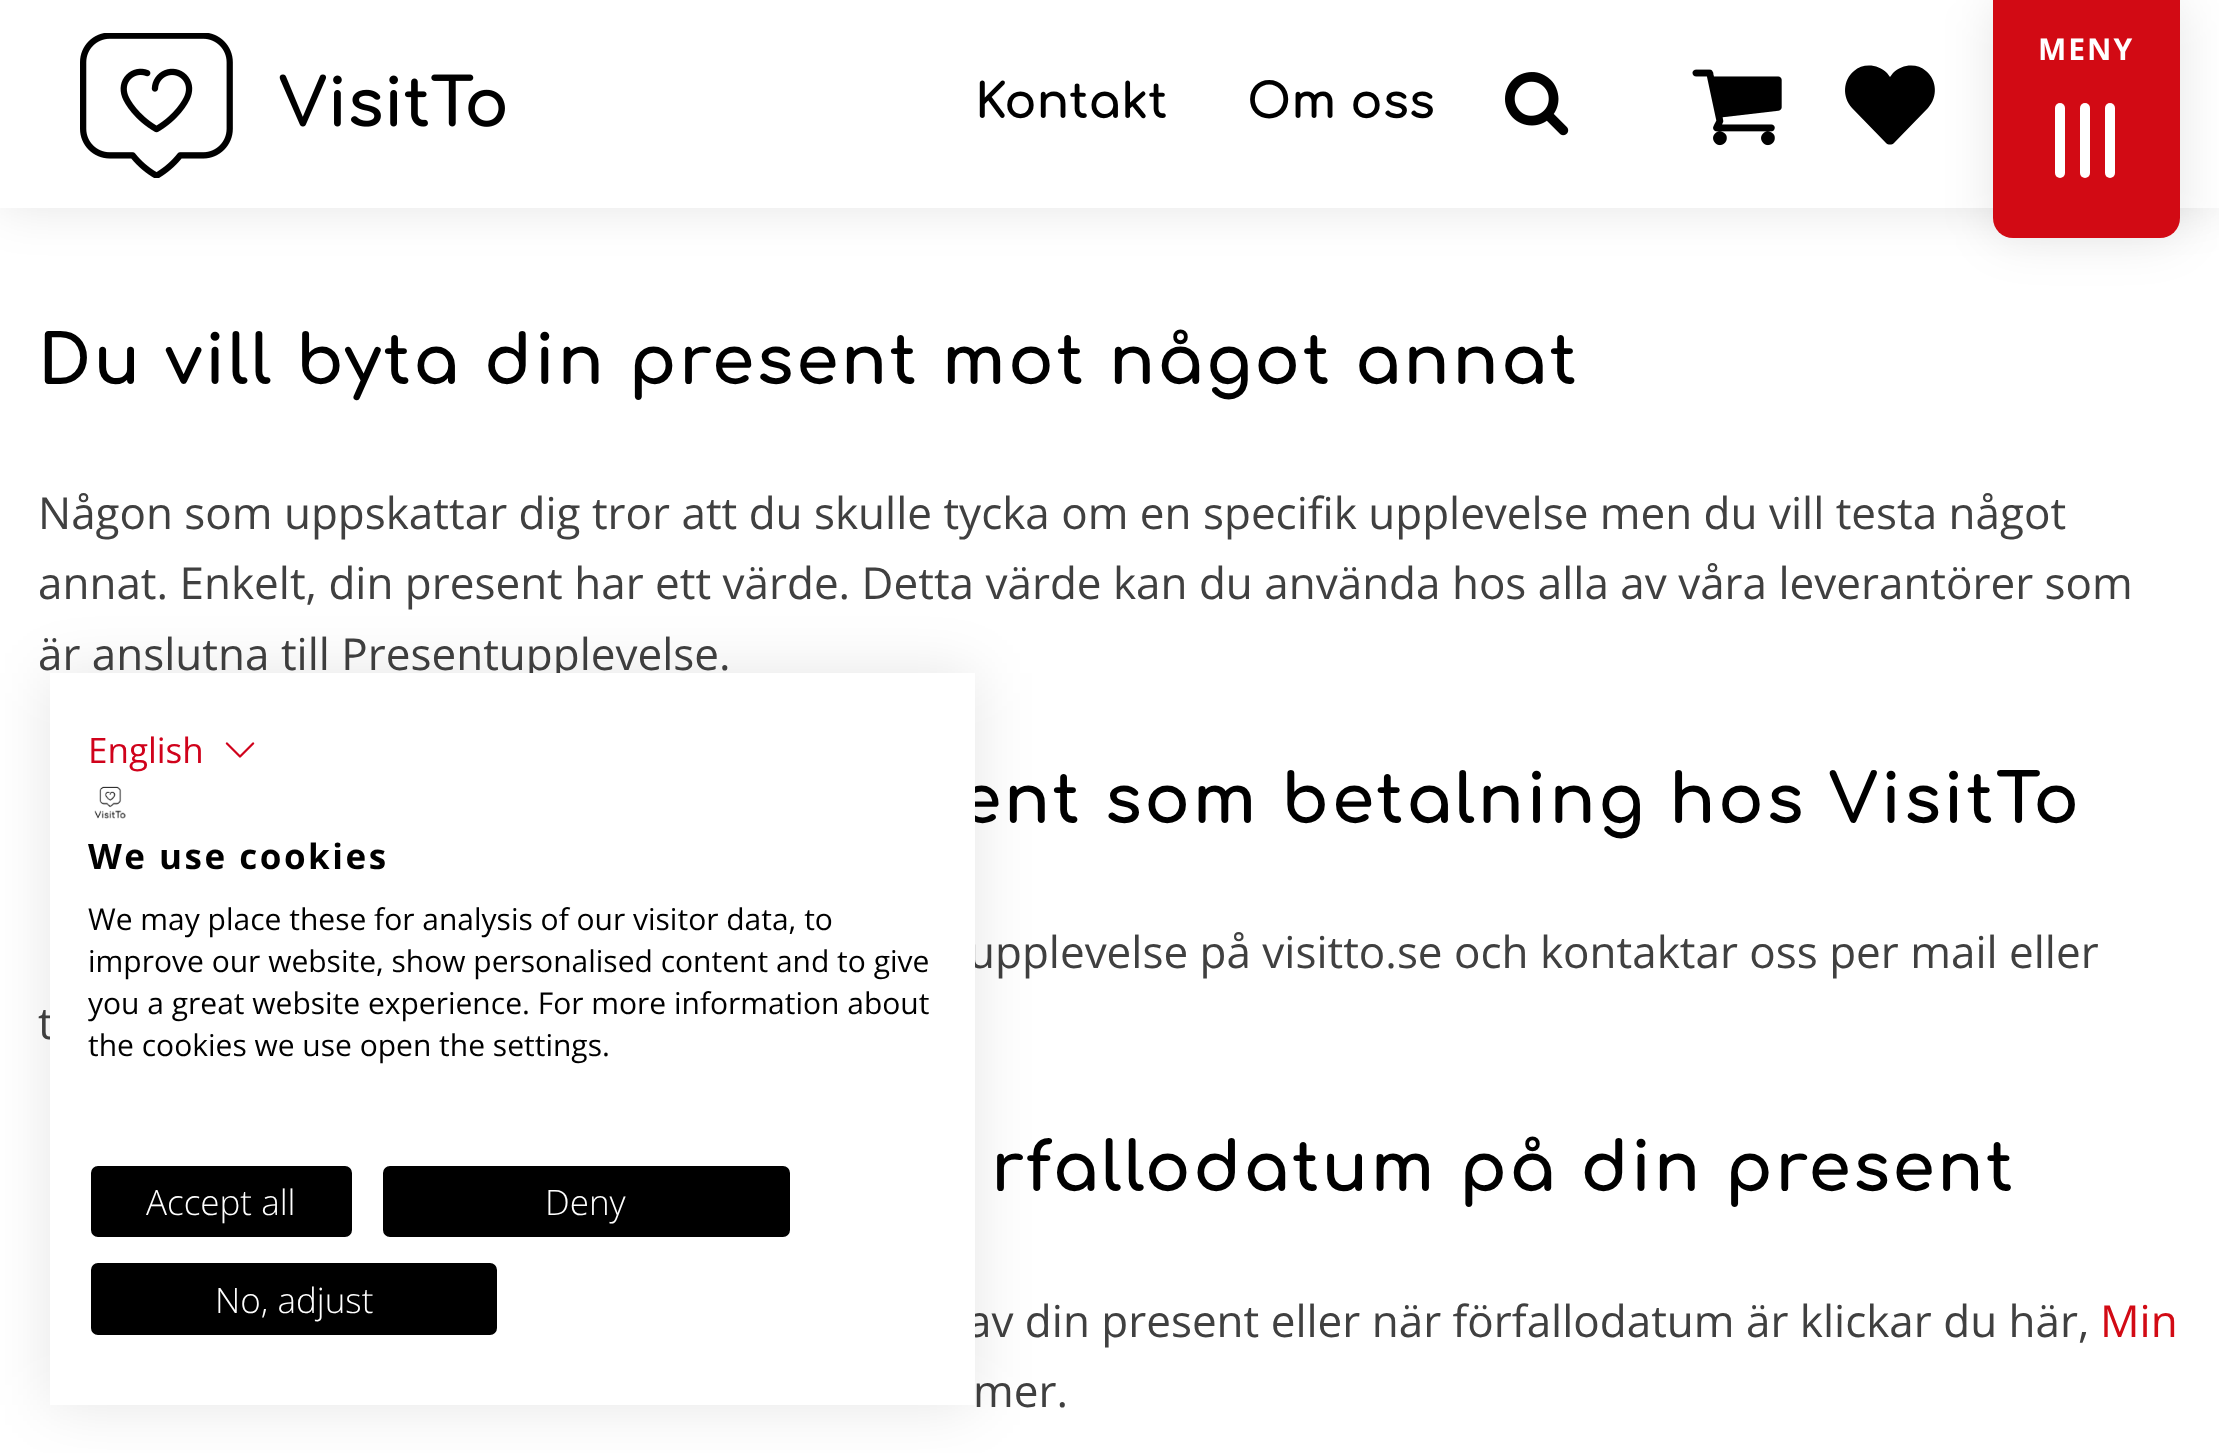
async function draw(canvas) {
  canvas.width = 2219;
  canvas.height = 1453;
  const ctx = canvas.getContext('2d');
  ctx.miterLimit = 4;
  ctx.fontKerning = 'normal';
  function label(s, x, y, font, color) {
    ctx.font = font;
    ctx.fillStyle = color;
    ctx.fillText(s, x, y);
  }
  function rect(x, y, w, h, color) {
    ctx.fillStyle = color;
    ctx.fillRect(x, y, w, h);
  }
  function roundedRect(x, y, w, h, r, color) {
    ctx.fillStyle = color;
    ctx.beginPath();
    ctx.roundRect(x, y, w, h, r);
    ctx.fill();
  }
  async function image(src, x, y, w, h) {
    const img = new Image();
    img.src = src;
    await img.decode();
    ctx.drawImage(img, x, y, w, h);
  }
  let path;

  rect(0, 0, 2219, 1453, '#fff');
  ctx.fillStyle = '#0000001a';
  ctx.filter = 'blur(25px)';
  ctx.beginPath();
  ctx.rect(0, 0, 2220, 208);
  ctx.fill();
  ctx.filter = 'none';
  rect(0, 0, 2219, 208, '#fff');
  await image('assets/img1.png', 80, 33, 425, 145);
  ctx.fillStyle = '#000';
  path = new Path2D('M1926 71C1917 63 1902 64 1893 73L1890 77L1887 73C1878 64 1863 63 1854 71C1843 80 1842 97 1852 108L1886 143C1888 145 1892 145 1894 143L1928 108C1938 97 1937 80 1926 71Z');
  ctx.fill(path);
  ctx.fillStyle = '#0000001a';
  ctx.filter = 'blur(25px)';
  ctx.beginPath();
  ctx.roundRect(1993, 0, 187, 238, 20);
  ctx.fill();
  ctx.filter = 'none';
  ctx.fillStyle = '#d20a14';
  ctx.beginPath();
  ctx.roundRect(1993, 0, 187, 238, [0, 0, 20, 20]);
  ctx.fill();
  ctx.letterSpacing = '2px';
  label('MENY', 2038, 60, 'bold 30px Open Sans', '#fff');
  roundedRect(2055, 103, 10, 75, 5, '#fff');
  roundedRect(2080, 103, 10, 75, 5, '#fff');
  roundedRect(2105, 103, 10, 75, 5, '#fff');
  ctx.letterSpacing = '0px';
  label('Kontakt', 975, 118, 'bold 48px Comfortaa', '#000');
  label('Om oss', 1247, 118, 'bold 48px Comfortaa', '#000');
  await image('assets/img2.png', 1505, 72, 64, 64);
  await image('assets/img3.png', 1692, 69, 90, 77);
  ctx.letterSpacing = '2.5px';
  label('Du vill byta din present mot något annat', 38, 384, 'bold 68px Comfortaa', '#000');
  ctx.letterSpacing = '0px';
  label('Någon som uppskattar dig tror att du skulle tycka om en specifik upplevelse men du vill testa något', 38, 529, '44px Open Sans', '#404040');
  label('annat. Enkelt, din present har ett värde. Detta värde kan du använda hos alla av våra leverantörer som', 38, 599, '44px Open Sans', '#404040');
  label('är anslutna till Presentupplevelse.', 38, 670, '44px Open Sans', '#404040');
  ctx.letterSpacing = '2.5px';
  label('ent som betalning hos VisitTo', 959, 823, 'bold 68px Comfortaa', '#000');
  ctx.letterSpacing = '0px';
  label('upplevelse på visitto.se och kontaktar oss per mail eller', 968, 968, '44px Open Sans', '#404040');
  label('t', 38, 1039, '44px Open Sans', '#404040');
  ctx.letterSpacing = '2.5px';
  label('rfallodatum på din present', 991, 1191, 'bold 68px Comfortaa', '#000');
  ctx.letterSpacing = '0px';
  label('av din present eller när förfallodatum är klickar du här,', 967, 1337, '44px Open Sans', '#404040');
  label('Min', 2100, 1337, '44px Open Sans', '#d20a14');
  label('mer.', 973, 1407, '44px Open Sans', '#404040');
  ctx.fillStyle = '#0000001a';
  ctx.filter = 'blur(30px)';
  ctx.beginPath();
  ctx.rect(50, 673, 925, 732);
  ctx.fill();
  ctx.filter = 'none';
  rect(50, 673, 925, 732, '#fff');
  label('English', 88, 763, '35px Open Sans', '#d0021b');
  await image('assets/img4.png', 225, 742, 30, 16);
  await image('assets/img5.png', 94, 786, 32, 33);
  ctx.letterSpacing = '2.5px';
  label('We use cookies', 88, 869, 'bold 35px Open Sans', '#000');
  ctx.letterSpacing = '0px';
  label('We may place these for analysis of our visitor data, to', 88, 930, '30px Open Sans', '#000');
  label('improve our website, show personalised content and to give', 88, 972, '30px Open Sans', '#000');
  label('you a great website experience. For more information about', 88, 1014, '30px Open Sans', '#000');
  label('the cookies we use open the settings.', 88, 1056, '30px Open Sans', '#000');
  ctx.beginPath();
  ctx.roundRect(89.5, 1164.5, 264, 74, 8.5);
  ctx.fill();
  ctx.strokeStyle = '#fff';
  ctx.lineWidth = 3;
  ctx.stroke();
  label('Accept all', 146, 1215, '300 35px Open Sans', '#fff');
  ctx.fillStyle = '#000';
  ctx.beginPath();
  ctx.roundRect(381.5, 1164.5, 410, 74, 8.5);
  ctx.fill();
  ctx.stroke();
  label('Deny', 545, 1215, '300 35px Open Sans', '#fff');
  ctx.fillStyle = '#000';
  ctx.beginPath();
  ctx.roundRect(89.5, 1261.5, 409, 75, 8.5);
  ctx.fill();
  ctx.stroke();
  label('No, adjust', 215, 1313, '300 35px Open Sans', '#fff');
}

draw(document.querySelector('canvas'));
